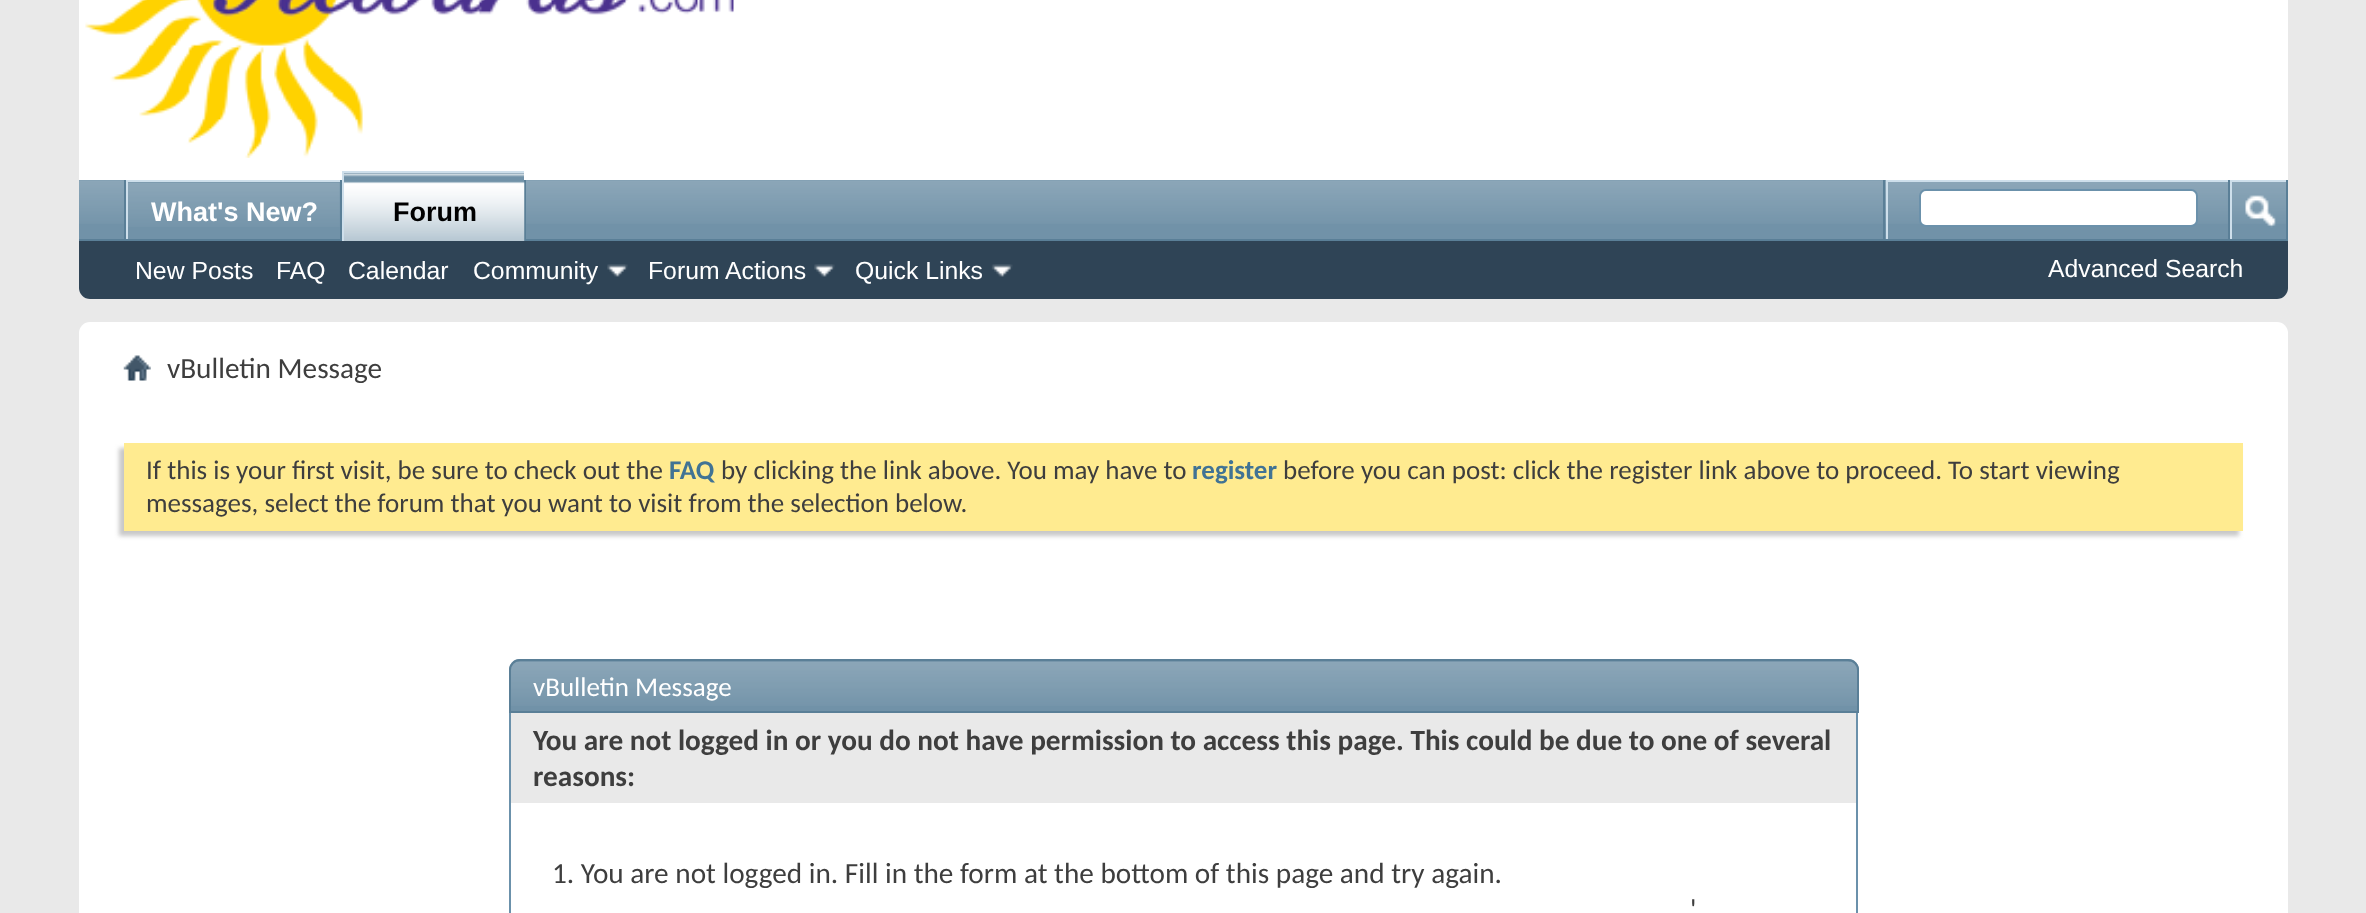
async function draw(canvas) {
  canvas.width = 2366;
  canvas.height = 913;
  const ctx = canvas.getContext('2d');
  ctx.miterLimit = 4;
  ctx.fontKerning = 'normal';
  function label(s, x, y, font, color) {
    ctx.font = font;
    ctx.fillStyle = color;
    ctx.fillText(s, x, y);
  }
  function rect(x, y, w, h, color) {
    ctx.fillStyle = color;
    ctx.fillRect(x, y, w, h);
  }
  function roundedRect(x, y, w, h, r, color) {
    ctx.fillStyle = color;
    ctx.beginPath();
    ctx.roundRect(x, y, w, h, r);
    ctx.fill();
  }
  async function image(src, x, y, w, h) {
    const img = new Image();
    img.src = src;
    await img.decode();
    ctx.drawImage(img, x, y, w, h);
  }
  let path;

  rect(0, 0, 2366, 913, '#e9e9e9');
  ctx.fillStyle = '#fff';
  path = new Path2D('M79-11H2288V288C2288 294 2283 299 2277 299H90C84 299 79 294 79 288Z');
  ctx.fill(path);
  await image('assets/img1.png', 85, 0, 649, 158);
  ctx.fillStyle = '#2f4456';
  ctx.beginPath();
  ctx.roundRect(79, 180, 2209, 119, [0, 0, 11, 11]);
  ctx.fill();
  rect(79, 180, 2207, 59, '#7192a8');
  await image('assets/img2.png', 79, 180, 2207, 44);
  rect(340, 180, 2, 61, '#5a7f97');
  rect(124, 180, 2, 61, '#5a7f97');
  rect(128, 182, 212, 42, '#7192a8');
  await image('assets/img3.png', 128, 182, 212, 45);
  rect(126, 180, 214, 2, '#cedfeb');
  rect(126, 180, 2, 61, '#cedfeb');
  label('What\'s New?', 151, 221, 'bold 27px Liberation Sans', '#fff');
  rect(524, 180, 2, 59, '#5a7f97');
  rect(79, 239, 2209, 2, '#5a7f97');
  rect(344, 173, 180, 68, '#7192a8');
  await image('assets/img4.png', 344, 173, 181, 68);
  rect(342, 171, 182, 2, '#cedfeb');
  rect(342, 171, 2, 70, '#cedfeb');
  label('Forum', 393, 221, 'bold 27px Liberation Sans', '#000');
  label('New Posts', 135, 279, '24.75px Liberation Sans', '#fff');
  label('FAQ', 276, 279, '24.75px Liberation Sans', '#fff');
  label('Calendar', 348, 279, '24.75px Liberation Sans', '#fff');
  label('Community', 473, 279, '24.75px Liberation Sans', '#fff');
  await image('assets/img5.png', 607, 264, 21, 13);
  label('Forum Actions', 648, 279, '24.75px Liberation Sans', '#fff');
  await image('assets/img5.png', 814, 264, 21, 13);
  label('Quick Links', 855, 279, '24.75px Liberation Sans', '#fff');
  await image('assets/img6.png', 991, 264, 22, 13);
  rect(1883, 180, 2, 59, '#5a7f97');
  rect(1886, 180, 342, 2, '#cedfeb');
  rect(1886, 180, 2, 59, '#cedfeb');
  ctx.fillStyle = '#fff';
  ctx.beginPath();
  ctx.roundRect(1920, 190, 277, 36, 6);
  ctx.fill();
  ctx.strokeStyle = '#6b91ab';
  ctx.lineWidth = 2;
  ctx.stroke();
  rect(2286, 180, 2, 59, '#5a7f97');
  rect(2228, 180, 2, 59, '#5a7f97');
  rect(2230, 180, 56, 2, '#cedfeb');
  rect(2230, 180, 2, 59, '#cedfeb');
  await image('assets/img7.png', 2245, 195, 31, 33);
  label('Advanced Search', 2048, 277, '24.75px Liberation Sans', '#fff');
  roundedRect(79, 322, 2209, 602, 11, '#fff');
  await image('assets/img8.png', 123, 355, 28, 26);
  label('vBulletin Message', 167, 378, '29.25px Carlito', '#3e3e3e');
  ctx.fillStyle = '#c8c8c8';
  ctx.filter = 'blur(2px)';
  ctx.beginPath();
  ctx.rect(119, 448, 2120, 88);
  ctx.fill();
  ctx.filter = 'none';
  rect(124, 443, 2119, 88, '#ffeb90');
  label('If this is your first visit, be sure to check out the', 146, 479, '27px Carlito', '#3e3e3e');
  label('FAQ', 669, 479, 'bold 27px Carlito', '#417394');
  label('by clicking the link above. You may have to', 721, 479, '27px Carlito', '#3e3e3e');
  label('register', 1192, 479, 'bold 27px Carlito', '#417394');
  label('before you can post: click the register link above to proceed. To start viewing', 1283, 479, '27px Carlito', '#3e3e3e');
  label('messages, select the forum that you want to visit from the selection below.', 146, 512, '27px Carlito', '#3e3e3e');
  ctx.fillStyle = '#7192a8';
  ctx.beginPath();
  ctx.roundRect(509, 659, 1350, 54, [11, 11, 0, 0]);
  ctx.fill();
  await image('assets/img9.png', 509, 661, 1350, 45);
  ctx.beginPath();
  ctx.roundRect(510, 660, 1348, 52, [10, 10, 0, 0]);
  ctx.strokeStyle = '#5a7f97';
  ctx.stroke();
  label('vBulletin Message', 533, 696, '27px Carlito', '#fff');
  rect(1856, 713, 2, 200, '#6b91ab');
  rect(509, 713, 2, 200, '#6b91ab');
  rect(511, 713, 1345, 90, '#e9e9e9');
  label('You are not logged in or you do not have permission to access this page. This could be due to one of several', 533, 750, 'bold 29.25px Carlito', '#3e3e3e');
  label('reasons:', 533, 786, 'bold 29.25px Carlito', '#3e3e3e');
  label('1. You are not logged in. Fill in the form at the bottom of this page and try again.', 552, 883, '29.25px Carlito', '#3e3e3e');
  label('\'', 1690, 919, '29.25px Carlito', '#3e3e3e');
}

draw(document.querySelector('canvas'));
